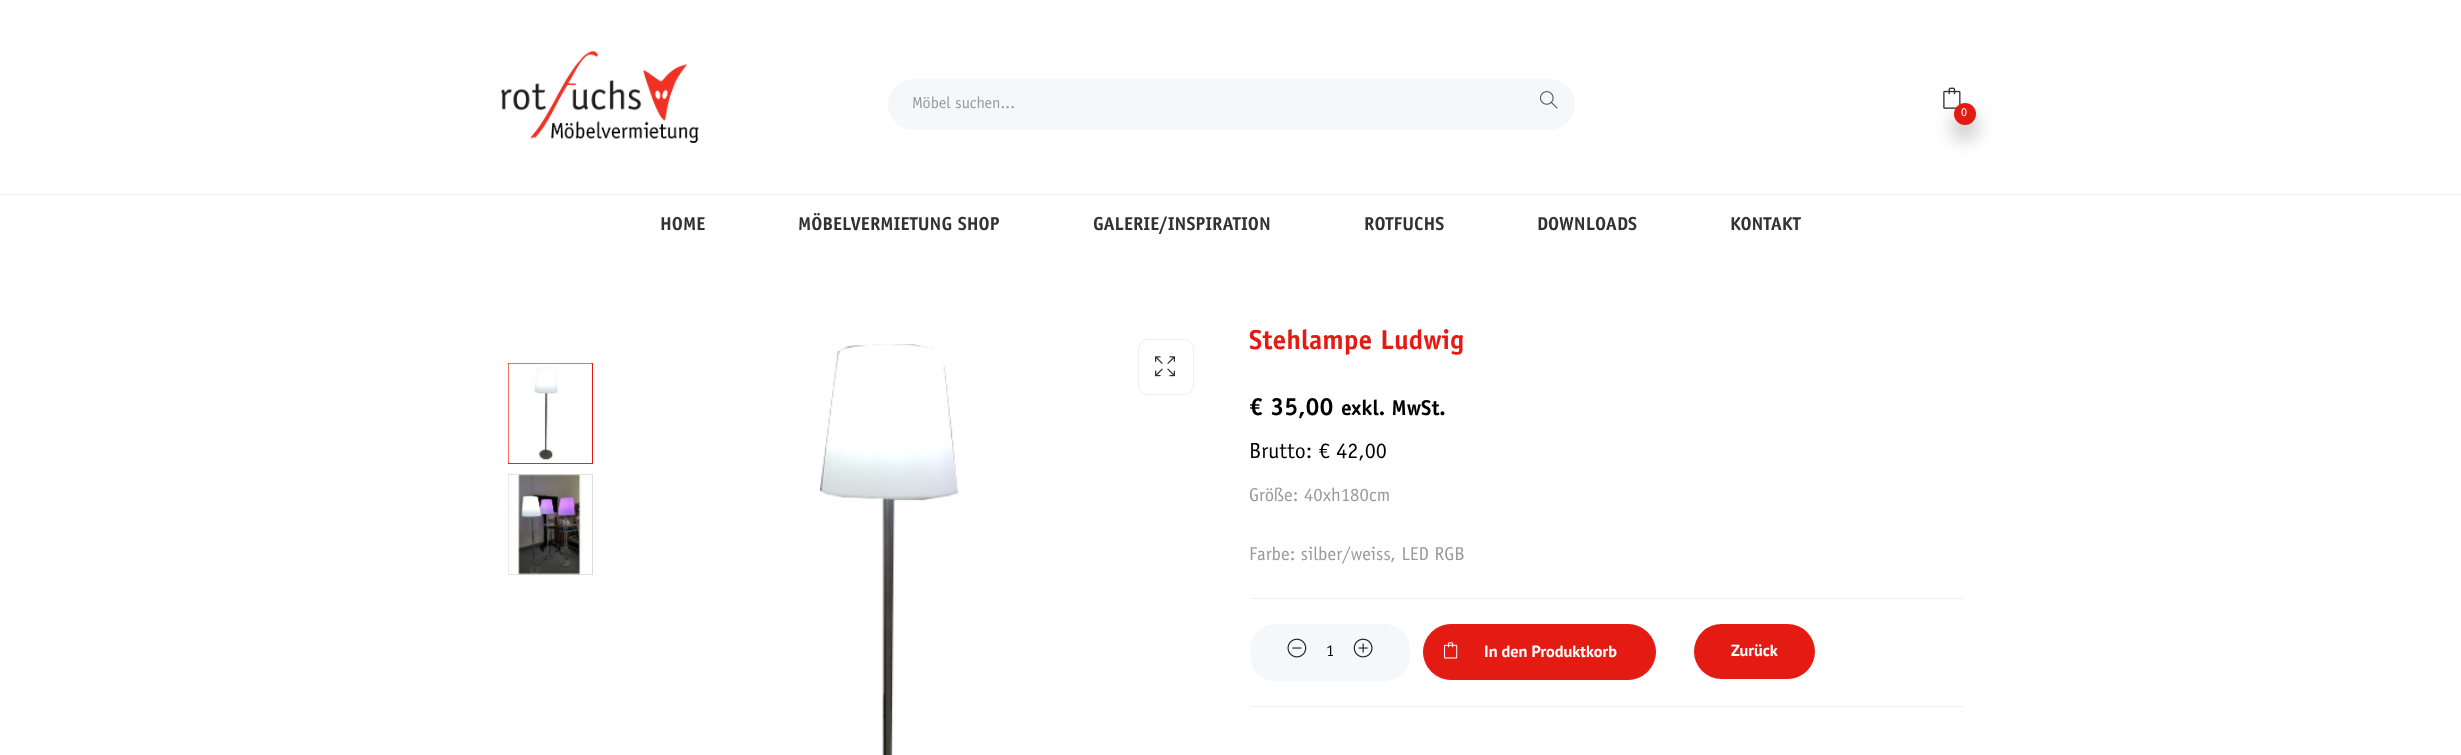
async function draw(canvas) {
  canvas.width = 2461;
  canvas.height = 755;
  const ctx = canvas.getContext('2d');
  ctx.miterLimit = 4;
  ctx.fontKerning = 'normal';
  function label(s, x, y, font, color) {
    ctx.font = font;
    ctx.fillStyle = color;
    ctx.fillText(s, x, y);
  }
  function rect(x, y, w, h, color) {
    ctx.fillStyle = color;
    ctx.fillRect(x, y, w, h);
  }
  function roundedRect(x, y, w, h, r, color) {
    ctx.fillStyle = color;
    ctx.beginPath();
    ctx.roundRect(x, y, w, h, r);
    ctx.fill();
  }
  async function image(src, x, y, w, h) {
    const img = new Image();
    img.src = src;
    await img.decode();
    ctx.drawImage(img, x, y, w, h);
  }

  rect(0, 0, 2461, 755, '#fff');
  await image('assets/img1.png', 501, 51, 198, 92);
  roundedRect(888, 79, 687, 51, 25.5, '#f4f8fb');
  label('Möbel suchen...', 912, 108, '16.25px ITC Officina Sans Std', '#999');
  await image('assets/img2.png', 1540, 91, 18, 18);
  await image('assets/img3.png', 1943, 87, 18, 22);
  ctx.fillStyle = '#0000004d';
  ctx.filter = 'blur(10px)';
  ctx.beginPath();
  ctx.roundRect(1954, 115, 22, 23, 11);
  ctx.fill();
  ctx.filter = 'none';
  ctx.fillStyle = '#e41b13';
  ctx.beginPath();
  ctx.arc(1965, 114, 11, 0, 2 * Math.PI);
  ctx.fill();
  label('0', 1961, 116, '12px ITC Officina Sans Std', '#fff');
  rect(0, 194, 2461, 1, '#eee');
  label('HOME', 660, 230, 'bold 18.75px ITC Officina Sans Std', '#323232');
  label('MÖBELVERMIETUNG SHOP', 798, 230, 'bold 18.75px ITC Officina Sans Std', '#323232');
  label('GALERIE/INSPIRATION', 1093, 230, 'bold 18.75px ITC Officina Sans Std', '#323232');
  label('ROTFUCHS', 1364, 230, 'bold 18.75px ITC Officina Sans Std', '#323232');
  label('DOWNLOADS', 1537, 230, 'bold 18.75px ITC Officina Sans Std', '#323232');
  label('KONTAKT', 1730, 230, 'bold 18.75px ITC Officina Sans Std', '#323232');
  ctx.strokeStyle = '#e41b13';
  ctx.strokeRect(508.5, 363.5, 84, 100);
  await image('assets/img4.png', 508, 363, 84, 101);
  ctx.strokeStyle = '#ddd';
  ctx.strokeRect(508.5, 474.5, 84, 100);
  await image('assets/img5.png', 508, 474, 83, 101);
  await image('assets/img6.png', 820, 344, 139, 411);
  ctx.beginPath();
  ctx.roundRect(1138.5, 339.5, 55, 55, 9.5);
  ctx.strokeStyle = '#eee';
  ctx.stroke();
  await image('assets/img7.png', 1155, 356, 20, 21);
  label('Stehlampe Ludwig', 1249, 349, 'bold 27.5px ITC Officina Sans Std', '#e41b13');
  label('€ 35,00', 1249, 415, 'bold 25px ITC Officina Sans Std', '#000');
  label('exkl. MwSt.', 1341, 415, 'bold 21.5px ITC Officina Sans Std', '#000');
  label('Brutto: € 42,00', 1249, 458, '22px ITC Officina Sans Std', '#000');
  label('Größe: 40xh180cm', 1249, 501, '18.75px ITC Officina Sans Std', '#999');
  label('Farbe: silber/weiss, LED RGB', 1249, 560, '18.75px ITC Officina Sans Std', '#999');
  rect(1250, 598, 713, 1, '#eee');
  rect(1250, 706, 713, 1, '#eee');
  roundedRect(1250, 624, 160, 57, 25, '#f4f8fb');
  await image('assets/img8.png', 1287, 638, 20, 20);
  label('1', 1326, 656, '16.25px ITC Officina Sans Std', '#000');
  await image('assets/img9.png', 1353, 638, 20, 20);
  ctx.fillStyle = '#e41b13';
  ctx.beginPath();
  ctx.roundRect(1423.5, 624.5, 232, 55, 27.5);
  ctx.fill();
  ctx.strokeStyle = '#e41b13';
  ctx.stroke();
  await image('assets/img10.png', 1444, 642, 14, 17);
  label('In den Produktkorb', 1484, 657, 'bold 16.25px PT Sans', '#fff');
  roundedRect(1694, 624, 121, 55, 27.5, '#e41b13');
  label('Zurück', 1731, 656, 'bold 16.25px PT Sans', '#fff');
}

draw(document.querySelector('canvas'));
